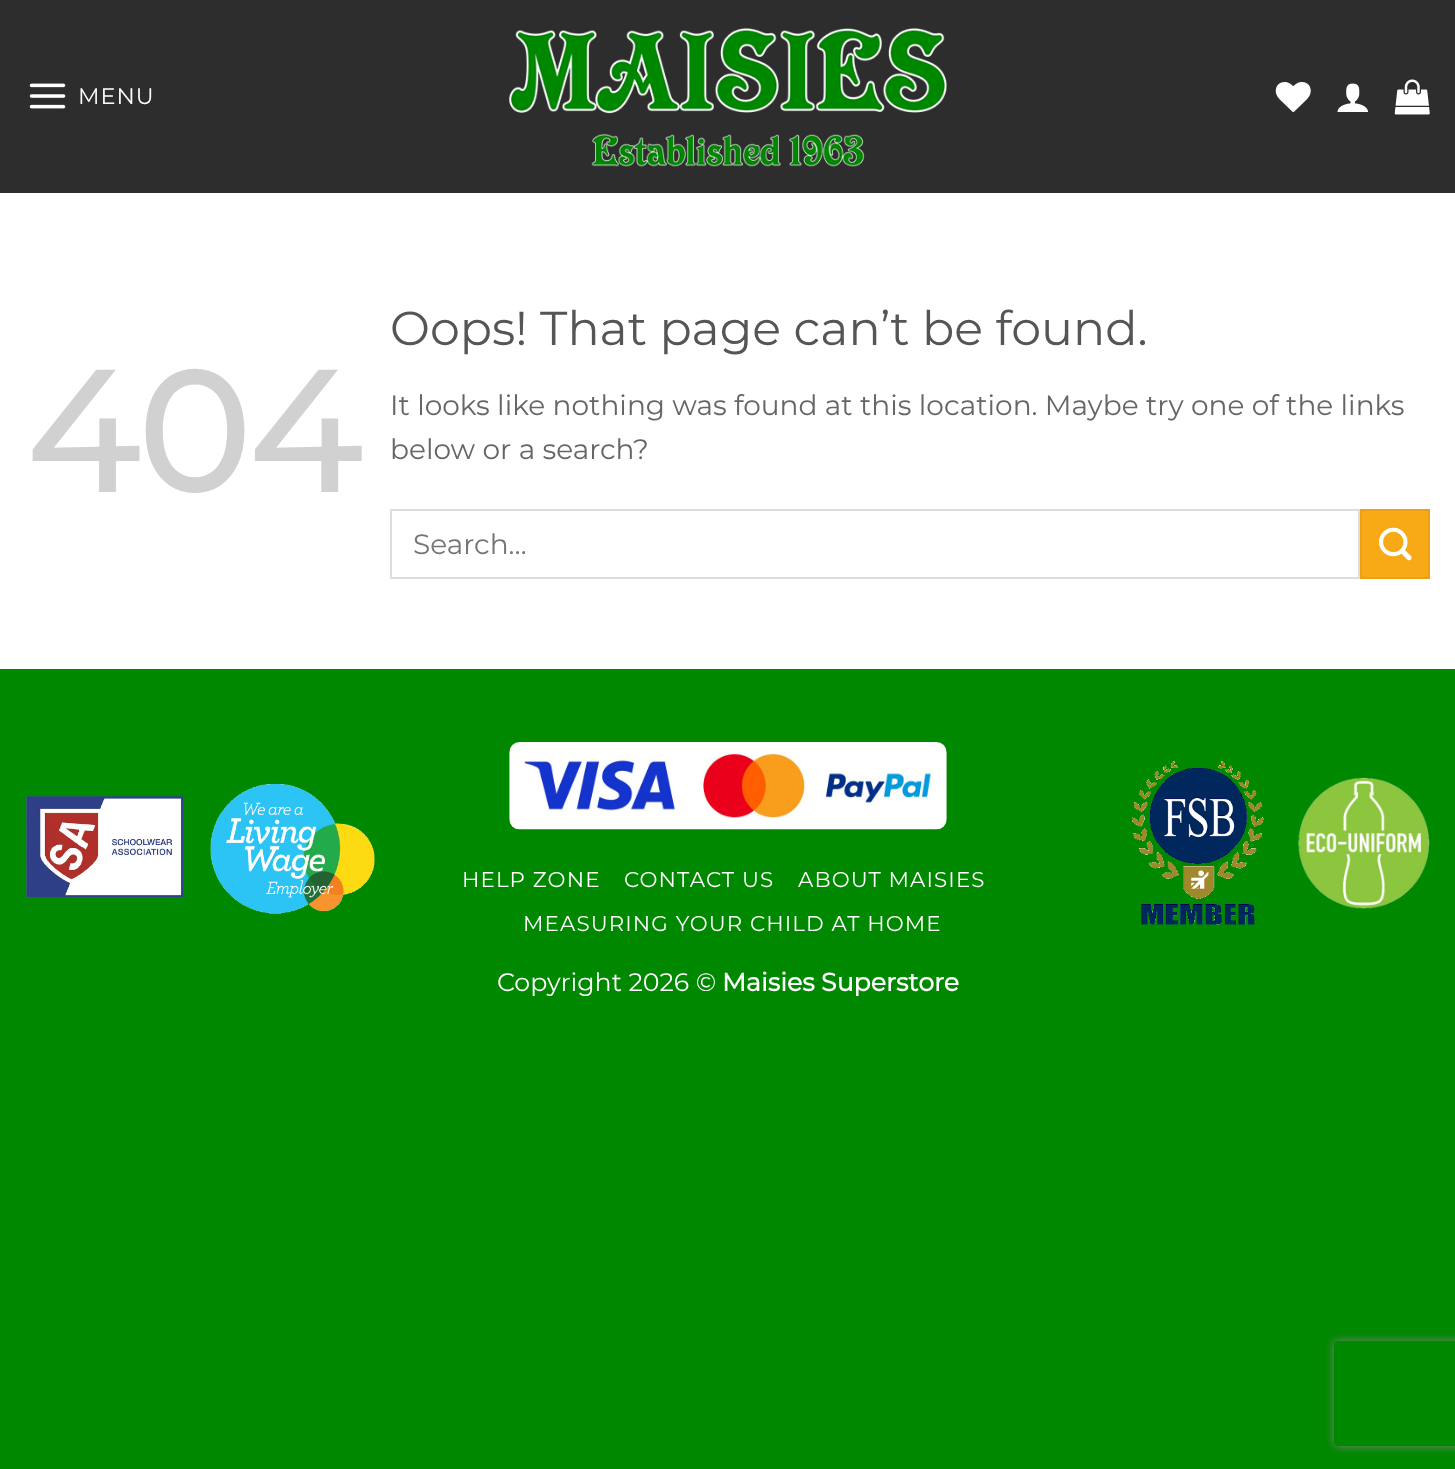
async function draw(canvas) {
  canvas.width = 1455;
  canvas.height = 1469;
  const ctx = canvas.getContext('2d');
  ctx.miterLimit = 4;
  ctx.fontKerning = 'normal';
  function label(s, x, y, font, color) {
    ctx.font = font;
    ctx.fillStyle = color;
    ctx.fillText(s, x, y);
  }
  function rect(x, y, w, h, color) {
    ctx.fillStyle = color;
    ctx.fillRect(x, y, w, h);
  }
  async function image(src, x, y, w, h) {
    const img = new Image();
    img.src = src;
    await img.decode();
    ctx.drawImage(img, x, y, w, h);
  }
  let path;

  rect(0, 0, 1455, 1469, '#080');
  rect(0, 193, 1455, 476, '#fff');
  rect(0, 0, 1455, 193, '#2d2d2d');
  await image('assets/img1.png', 29, 83, 37, 26);
  ctx.letterSpacing = '1px';
  label('MENU', 78, 104, '100 22.5px Montserrat', '#fff');
  await image('assets/img2.png', 509, 28, 438, 139);
  await image('assets/img3.png', 1275, 82, 36, 30);
  await image('assets/img4.png', 1337, 83, 31, 29);
  await image('assets/img5.png', 1394, 79, 36, 36);
  ctx.letterSpacing = '0px';
  label('404', 26, 492, 'bold 168px Montserrat', '#d1d1d1');
  label('Oops! That page can’t be found.', 390, 345, '100 47.6px Montserrat', '#555');
  label('It looks like nothing was found at this location. Maybe try one of the links', 390, 415, '100 28px Montserrat', '#666');
  label('below or a search?', 390, 459, '100 28px Montserrat', '#666');
  ctx.strokeStyle = '#ddd';
  ctx.lineWidth = 2;
  ctx.strokeRect(391, 510, 968, 68);
  label('Search…', 413, 554, '100 28px Montserrat', '#757575');
  ctx.fillStyle = '#f8a916';
  ctx.beginPath();
  ctx.rect(1361, 510, 68, 68);
  ctx.fill();
  ctx.strokeStyle = '#eca115';
  ctx.stroke();
  await image('assets/img6.png', 1379, 527, 33, 34);
  await image('assets/img7.png', 26, 796, 158, 102);
  await image('assets/img8.png', 210, 784, 165, 130);
  await image('assets/img9.png', 1132, 761, 132, 164);
  await image('assets/img10.png', 1298, 777, 132, 132);
  await image('assets/img11.png', 509, 742, 438, 88);
  ctx.letterSpacing = '1.1px';
  label('HELP ZONE', 462, 887, '100 21.4px Montserrat', '#fff');
  label('CONTACT US', 624, 887, '100 21.4px Montserrat', '#fff');
  label('ABOUT MAISIES', 798, 887, '100 21.4px Montserrat', '#fff');
  label('MEASURING YOUR CHILD AT HOME', 523, 931, '100 21.4px Montserrat', '#fff');
  ctx.letterSpacing = '0px';
  label('Copyright 2026 ©', 497, 991, '100 25.25px Montserrat', '#fff');
  label('Maisies Superstore', 722, 991, 'bold 25.25px Montserrat', '#fff');
  ctx.save();
  path = new Path2D('M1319 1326H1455V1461H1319ZM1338 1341H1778C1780 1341 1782 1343 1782 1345V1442C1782 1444 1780 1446 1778 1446H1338C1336 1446 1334 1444 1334 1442V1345C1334 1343 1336 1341 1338 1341Z');
  ctx.clip(path, 'evenodd');
  ctx.fillStyle = '#808080';
  ctx.filter = 'blur(4.5px)';
  ctx.beginPath();
  ctx.roundRect(1334, 1341, 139, 105, 4);
  ctx.fill();
  ctx.filter = 'none';
  ctx.restore();
}

draw(document.querySelector('canvas'));
